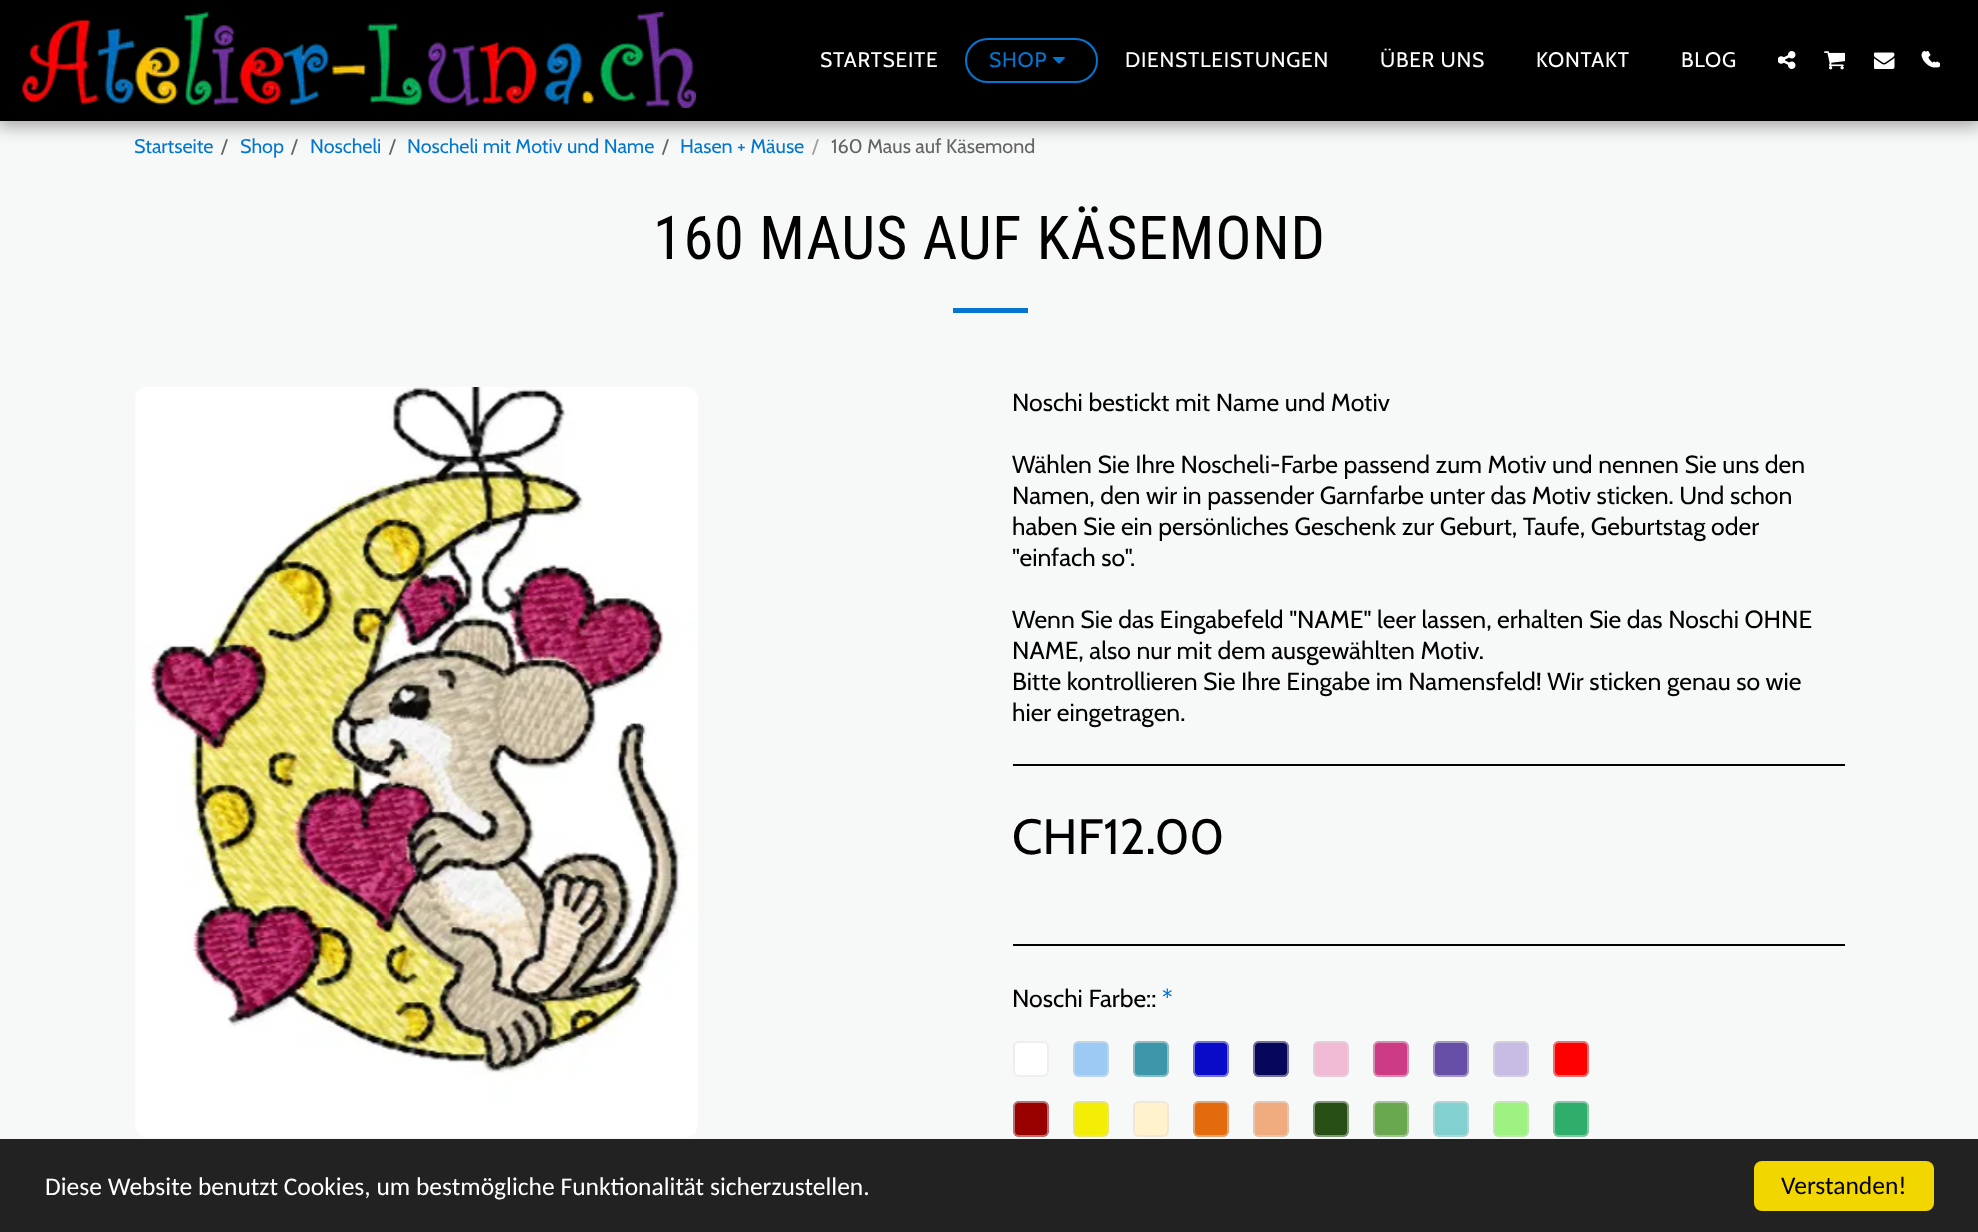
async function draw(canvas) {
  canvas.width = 1978;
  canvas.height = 1232;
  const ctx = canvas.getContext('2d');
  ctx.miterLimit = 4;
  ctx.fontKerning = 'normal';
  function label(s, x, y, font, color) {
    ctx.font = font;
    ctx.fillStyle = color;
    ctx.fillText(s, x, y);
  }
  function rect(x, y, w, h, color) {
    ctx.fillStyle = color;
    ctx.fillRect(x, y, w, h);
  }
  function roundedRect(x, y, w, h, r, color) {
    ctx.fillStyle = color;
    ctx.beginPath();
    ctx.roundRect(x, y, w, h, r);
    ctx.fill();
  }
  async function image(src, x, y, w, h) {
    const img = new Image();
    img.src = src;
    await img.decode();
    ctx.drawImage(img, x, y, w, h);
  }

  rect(0, 0, 1978, 1232, '#f7f9f8');
  ctx.fillStyle = '#00000059';
  ctx.filter = 'blur(9px)';
  ctx.beginPath();
  ctx.rect(-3, 0, 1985, 126);
  ctx.fill();
  ctx.filter = 'none';
  rect(0, 0, 1978, 121, '#000');
  await image('assets/img1.png', 22, 12, 674, 96);
  ctx.letterSpacing = '0.75px';
  label('STARTSEITE', 820, 67, '21px Cabin', '#fff');
  ctx.beginPath();
  ctx.roundRect(966, 39, 131, 43, 21.5);
  ctx.strokeStyle = '#0476d0';
  ctx.lineWidth = 2;
  ctx.stroke();
  label('SHOP', 989, 67, '21px Cabin', '#0476d0');
  await image('assets/img2.png', 1053, 57, 12, 7);
  label('DIENSTLEISTUNGEN', 1125, 67, '21px Cabin', '#fff');
  label('ÜBER UNS', 1380, 67, '21px Cabin', '#fff');
  label('KONTAKT', 1536, 67, '21px Cabin', '#fff');
  label('BLOG', 1681, 67, '21px Cabin', '#fff');
  await image('assets/img3.png', 1778, 51, 18, 18);
  await image('assets/img4.png', 1824, 51, 21, 19);
  await image('assets/img5.png', 1874, 52, 21, 17);
  await image('assets/img6.png', 1925, 51, 15, 17);
  await image('assets/img7.png', 1921, 51, 15, 17);
  ctx.letterSpacing = '0px';
  label('Startseite', 134, 153, '19.75px Cabin', '#0476d0');
  label('/', 221, 153, '19.75px Cabin', '#636463');
  label('Shop', 240, 153, '19.75px Cabin', '#0476d0');
  label('/', 291, 153, '19.75px Cabin', '#636463');
  label('Noscheli', 310, 153, '19.75px Cabin', '#0476d0');
  label('/', 389, 153, '19.75px Cabin', '#636463');
  label('Noscheli mit Motiv und Name', 407, 153, '19.75px Cabin', '#0476d0');
  label('/', 662, 153, '19.75px Cabin', '#636463');
  label('Hasen + Mäuse', 680, 153, '19.75px Cabin', '#0476d0');
  label('/', 812, 153, '19.75px Cabin', '#9e9f9f');
  label('160 Maus auf Käsemond', 831, 153, '19.75px Cabin', '#636463');
  ctx.letterSpacing = '0.75px';
  label('160 MAUS AUF KÄSEMOND', 653, 259, '60.4px Roboto Condensed', '#000');
  rect(953, 308, 75, 5, '#0476d0');
  await image('assets/img8.png', 135, 387, 563, 750);
  ctx.letterSpacing = '0px';
  label('Noschi bestickt mit Name und Motiv', 1012, 411, '24.75px Cabin', '#000');
  label('Wählen Sie Ihre Noscheli-Farbe passend zum Motiv und nennen Sie uns den', 1012, 473, '24.75px Cabin', '#000');
  label('Namen, den wir in passender Garnfarbe unter das Motiv sticken. Und schon', 1012, 504, '24.75px Cabin', '#000');
  label('haben Sie ein persönliches Geschenk zur Geburt, Taufe, Geburtstag oder', 1012, 535, '24.75px Cabin', '#000');
  label('"einfach so".', 1012, 566, '24.75px Cabin', '#000');
  label('Wenn Sie das Eingabefeld "NAME" leer lassen, erhalten Sie das Noschi OHNE', 1012, 628, '24.75px Cabin', '#000');
  label('NAME, also nur mit dem ausgewählten Motiv.', 1012, 659, '24.75px Cabin', '#000');
  label('Bitte kontrollieren Sie Ihre Eingabe im Namensfeld! Wir sticken genau so wie', 1012, 690, '24.75px Cabin', '#000');
  label('hier eingetragen.', 1012, 721, '24.75px Cabin', '#000');
  rect(1013, 764, 832, 2, '#000');
  label('CHF12.00', 1012, 854, '49.5px Cabin', '#000');
  rect(1013, 944, 832, 2, '#000');
  label('Noschi Farbe::', 1012, 1007, '24.75px Cabin', '#000');
  label('*', 1162, 1007, '24.75px Cabin', '#0476d0');
  ctx.fillStyle = '#fff';
  ctx.beginPath();
  ctx.roundRect(1014, 1042, 34, 34, 5);
  ctx.fill();
  ctx.strokeStyle = '#eee';
  ctx.stroke();
  roundedRect(1073, 1041, 36, 36, 6, '#9ccaf4');
  ctx.beginPath();
  ctx.roundRect(1074, 1042, 34, 34, 5);
  ctx.strokeStyle = '#dddddd80';
  ctx.stroke();
  roundedRect(1133, 1041, 36, 36, 6, '#3d97ab');
  ctx.beginPath();
  ctx.roundRect(1134, 1042, 34, 34, 5);
  ctx.stroke();
  roundedRect(1193, 1041, 36, 36, 6, '#0a0ac9');
  ctx.beginPath();
  ctx.roundRect(1194, 1042, 34, 34, 5);
  ctx.stroke();
  roundedRect(1253, 1041, 36, 36, 6, '#06065a');
  ctx.beginPath();
  ctx.roundRect(1254, 1042, 34, 34, 5);
  ctx.stroke();
  roundedRect(1313, 1041, 36, 36, 6, '#f0b9d4');
  ctx.beginPath();
  ctx.roundRect(1314, 1042, 34, 34, 5);
  ctx.stroke();
  roundedRect(1373, 1041, 36, 36, 6, '#cc3b83');
  ctx.beginPath();
  ctx.roundRect(1374, 1042, 34, 34, 5);
  ctx.stroke();
  roundedRect(1433, 1041, 36, 36, 6, '#674ea7');
  ctx.beginPath();
  ctx.roundRect(1434, 1042, 34, 34, 5);
  ctx.stroke();
  roundedRect(1493, 1041, 36, 36, 6, '#c7bce3');
  ctx.beginPath();
  ctx.roundRect(1494, 1042, 34, 34, 5);
  ctx.stroke();
  roundedRect(1553, 1041, 36, 36, 6, '#f00');
  ctx.beginPath();
  ctx.roundRect(1554, 1042, 34, 34, 5);
  ctx.stroke();
  roundedRect(1013, 1101, 36, 36, 6, '#900');
  ctx.beginPath();
  ctx.roundRect(1014, 1102, 34, 34, 5);
  ctx.stroke();
  roundedRect(1073, 1101, 36, 36, 6, '#f4ed06');
  ctx.beginPath();
  ctx.roundRect(1074, 1102, 34, 34, 5);
  ctx.stroke();
  roundedRect(1133, 1101, 36, 36, 6, '#fff2cc');
  ctx.beginPath();
  ctx.roundRect(1134, 1102, 34, 34, 5);
  ctx.stroke();
  roundedRect(1193, 1101, 36, 36, 6, '#e36b0d');
  ctx.beginPath();
  ctx.roundRect(1194, 1102, 34, 34, 5);
  ctx.stroke();
  roundedRect(1253, 1101, 36, 36, 6, '#f0ab7e');
  ctx.beginPath();
  ctx.roundRect(1254, 1102, 34, 34, 5);
  ctx.stroke();
  roundedRect(1313, 1101, 36, 36, 6, '#274e13');
  ctx.beginPath();
  ctx.roundRect(1314, 1102, 34, 34, 5);
  ctx.stroke();
  roundedRect(1373, 1101, 36, 36, 6, '#6aa84f');
  ctx.beginPath();
  ctx.roundRect(1374, 1102, 34, 34, 5);
  ctx.stroke();
  roundedRect(1433, 1101, 36, 36, 6, '#83d0d0');
  ctx.beginPath();
  ctx.roundRect(1434, 1102, 34, 34, 5);
  ctx.stroke();
  roundedRect(1493, 1101, 36, 36, 6, '#9ef281');
  ctx.beginPath();
  ctx.roundRect(1494, 1102, 34, 34, 5);
  ctx.stroke();
  roundedRect(1553, 1101, 36, 36, 6, '#2fae6b');
  ctx.beginPath();
  ctx.roundRect(1554, 1102, 34, 34, 5);
  ctx.stroke();
  rect(0, 1139, 1978, 93, '#222');
  label('Diese Website benutzt Cookies, um bestmögliche Funktionalität sicherzustellen.', 45, 1195, '25.5px Carlito', '#fff');
  roundedRect(1754, 1161, 180, 50, 8, '#f1d600');
  label('Verstanden!', 1781, 1194, '25.5px Carlito', '#000');
}

draw(document.querySelector('canvas'));
